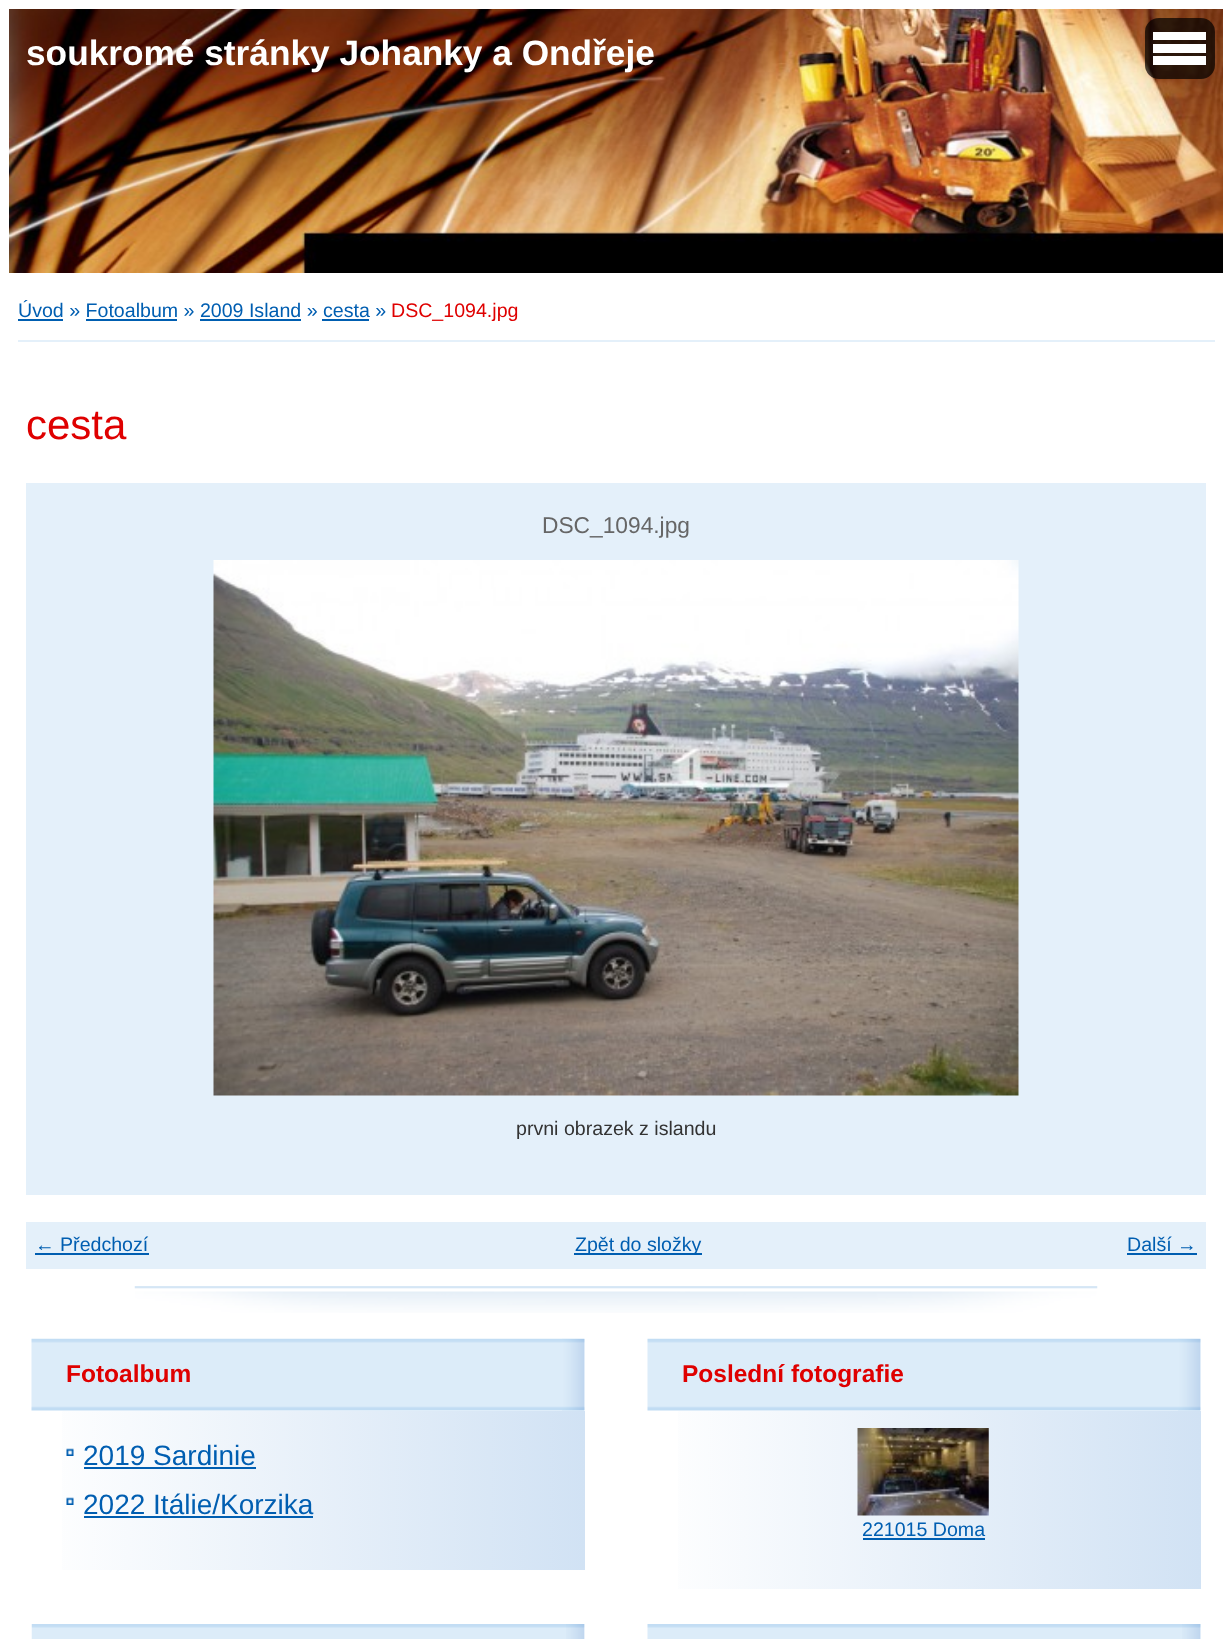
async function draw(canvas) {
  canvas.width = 1232;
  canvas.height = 1639;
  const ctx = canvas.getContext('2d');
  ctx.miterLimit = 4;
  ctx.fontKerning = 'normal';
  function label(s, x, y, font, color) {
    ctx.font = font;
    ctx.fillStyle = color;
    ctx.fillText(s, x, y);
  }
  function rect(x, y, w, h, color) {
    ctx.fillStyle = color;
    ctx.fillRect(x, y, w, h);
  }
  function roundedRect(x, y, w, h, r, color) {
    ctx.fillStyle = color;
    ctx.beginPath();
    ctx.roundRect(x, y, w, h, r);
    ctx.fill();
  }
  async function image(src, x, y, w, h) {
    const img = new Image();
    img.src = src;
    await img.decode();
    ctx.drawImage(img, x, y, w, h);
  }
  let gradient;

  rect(0, 0, 1232, 1639, '#fff');
  await image('assets/img1.png', 9, 9, 1214, 264);
  label('soukromé stránky Johanky a Ondřeje', 26, 65, 'bold 35.25px Liberation Sans', '#fff');
  roundedRect(1145, 18, 70, 61, 14, '#000000b3');
  rect(1153, 32, 53, 8, '#fff');
  rect(1153, 44, 53, 9, '#fff');
  rect(1153, 56, 53, 9, '#fff');
  rect(18, 340, 1197, 2, '#e4f0fa');
  label('Úvod » Fotoalbum » 2009 Island » cesta »', 18, 317, '19.6px Liberation Sans', '#005eb1');
  rect(18, 319, 45, 2, '#005eb1');
  label('DSC_1094.jpg', 391, 317, '19.6px Liberation Sans', '#df0000');
  rect(86, 319, 91, 2, '#005eb1');
  rect(200, 319, 101, 2, '#005eb1');
  rect(322, 319, 47, 2, '#005eb1');
  await image('assets/img2.png', 134, 1286, 964, 27);
  label('cesta', 26, 439, '42px Liberation Sans', '#df0000');
  rect(26, 483, 1180, 712, '#e4f0fa');
  label('DSC_1094.jpg', 542, 533, '22.75px Liberation Sans', '#666');
  await image('assets/img3.png', 213, 560, 806, 536);
  label('prvni obrazek z islandu', 516, 1135, '19.6px Liberation Sans', '#333');
  rect(26, 1222, 1180, 47, '#e4f0fa');
  label('← Předchozí', 35, 1251, '19.6px Liberation Sans', '#005eb1');
  rect(35, 1253, 114, 2, '#005eb1');
  rect(574, 1253, 128, 2, '#005eb1');
  label('Zpět do složky', 575, 1251, '19.6px Liberation Sans', '#005eb1');
  label('Další →', 1127, 1251, '19.6px Liberation Sans', '#005eb1');
  rect(1127, 1253, 70, 2, '#005eb1');
  await image('assets/img4.png', 31, 1338, 554, 73);
  label('Fotoalbum', 66, 1382, 'bold 24.5px Liberation Sans', '#df0000');
  await image('assets/img5.png', 562, 1338, 23, 73);
  gradient = ctx.createLinearGradient(32, 1490, 585, 1490);
  gradient.addColorStop(0, '#fff');
  gradient.addColorStop(1, '#d1e2f4');
  ctx.fillStyle = gradient;
  ctx.fillRect(62, 1411, 523, 159);
  await image('assets/img6.png', 66, 1448, 8, 8);
  label('2019 Sardinie', 83, 1465, '28px Liberation Sans', '#005eb1');
  rect(84, 1467, 172, 2, '#005eb1');
  await image('assets/img6.png', 66, 1497, 8, 8);
  label('2022 Itálie/Korzika', 83, 1514, '28px Liberation Sans', '#005eb1');
  rect(84, 1516, 229, 2, '#005eb1');
  await image('assets/img4.png', 647, 1338, 554, 73);
  label('Poslední fotografie', 682, 1382, 'bold 24.5px Liberation Sans', '#df0000');
  await image('assets/img5.png', 1178, 1338, 23, 73);
  gradient = ctx.createLinearGradient(648, 1500, 1201, 1500);
  gradient.addColorStop(0, '#fff');
  gradient.addColorStop(1, '#d1e2f4');
  ctx.fillStyle = gradient;
  ctx.fillRect(678, 1411, 523, 178);
  await image('assets/img7.png', 857, 1428, 132, 88);
  label('221015 Doma', 862, 1536, '19.6px Liberation Sans', '#005eb1');
  rect(863, 1538, 122, 2, '#005eb1');
  await image('assets/img8.png', 31, 1624, 554, 15);
  await image('assets/img9.png', 566, 1624, 19, 15);
  await image('assets/img10.png', 647, 1624, 554, 15);
  await image('assets/img11.png', 1182, 1624, 19, 15);
}

draw(document.querySelector('canvas'));
